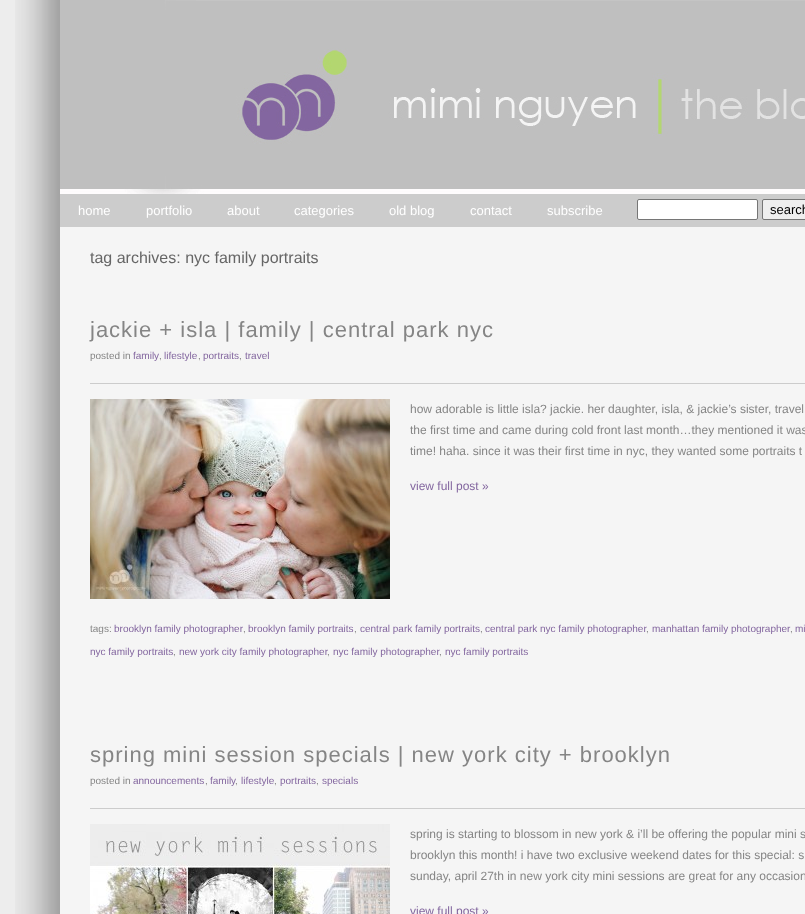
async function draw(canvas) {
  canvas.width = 805;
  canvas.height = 914;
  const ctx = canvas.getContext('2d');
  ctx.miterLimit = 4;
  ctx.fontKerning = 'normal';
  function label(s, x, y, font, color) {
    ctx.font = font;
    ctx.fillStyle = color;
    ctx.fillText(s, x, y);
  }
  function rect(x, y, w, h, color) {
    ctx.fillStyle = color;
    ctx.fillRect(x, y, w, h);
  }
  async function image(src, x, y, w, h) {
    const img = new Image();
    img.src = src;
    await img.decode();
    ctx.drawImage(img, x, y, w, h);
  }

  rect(0, 0, 805, 914, '#ededed');
  await image('assets/img1.png', 15, 0, 45, 914);
  await image('assets/img2.png', 60, 0, 745, 194);
  rect(60, 194, 745, 33, '#ccc');
  label('home', 78, 215, '13px Liberation Sans', '#fff');
  label('portfolio', 146, 215, '13px Liberation Sans', '#fff');
  label('about', 227, 215, '13px Liberation Sans', '#fff');
  label('categories', 294, 215, '13px Liberation Sans', '#fff');
  label('old blog', 389, 215, '13px Liberation Sans', '#fff');
  label('contact', 470, 215, '13px Liberation Sans', '#fff');
  label('subscribe', 547, 215, '13px Liberation Sans', '#fff');
  ctx.beginPath();
  ctx.roundRect(637.5, 199.5, 120, 20, 1.5);
  ctx.fill();
  ctx.strokeStyle = '#767676';
  ctx.stroke();
  ctx.fillStyle = '#efefef';
  ctx.beginPath();
  ctx.roundRect(762.5, 199.5, 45, 20, 1.5);
  ctx.fill();
  ctx.stroke();
  label('search', 770, 214, '13px Liberation Sans', '#000');
  rect(60, 227, 745, 687, '#f5f5f5');
  label('tag archives: nyc family portraits', 90, 263, '16px Liberation Sans', '#666');
  ctx.letterSpacing = '1px';
  label('jackie + isla | family | central park nyc', 90, 337, '22px Liberation Sans', '#858585');
  ctx.letterSpacing = '0px';
  label('posted in', 90, 359, '10px Liberation Sans', '#858585');
  label('family', 133, 359, '10px Liberation Sans', '#83669f');
  label('lifestyle', 164, 359, '10px Liberation Sans', '#83669f');
  label('portraits', 203, 359, '10px Liberation Sans', '#83669f');
  label('travel', 245, 359, '10px Liberation Sans', '#83669f');
  label(',', 159, 359, '10px Liberation Sans', '#858585');
  label(',', 198, 359, '10px Liberation Sans', '#858585');
  label(',', 239, 359, '10px Liberation Sans', '#858585');
  rect(90, 383, 715, 1, '#ccc');
  await image('assets/img3.png', 90, 399, 300, 200);
  label('how adorable is little isla? jackie. her daughter, isla, & jackie’s sister, travel', 410, 413, '12px Liberation Sans', '#858585');
  label('the first time and came during cold front last month…they mentioned it was', 410, 434, '12px Liberation Sans', '#858585');
  label('time! haha. since it was their first time in nyc, they wanted some portraits t', 410, 455, '12px Liberation Sans', '#858585');
  label('view full post »', 410, 490, '12px Liberation Sans', '#83669f');
  label('tags:', 90, 632, '10px Liberation Sans', '#858585');
  label('brooklyn family photographer', 114, 632, '10px Liberation Sans', '#83669f');
  label(',', 243, 632, '10px Liberation Sans', '#858585');
  label('brooklyn family portraits', 248, 632, '10px Liberation Sans', '#83669f');
  label(',', 354, 632, '10px Liberation Sans', '#858585');
  label('central park family portraits', 360, 632, '10px Liberation Sans', '#83669f');
  label(',', 480, 632, '10px Liberation Sans', '#858585');
  label('central park nyc family photographer', 485, 632, '10px Liberation Sans', '#83669f');
  label(',', 646, 632, '10px Liberation Sans', '#858585');
  label('manhattan family photographer', 652, 632, '10px Liberation Sans', '#83669f');
  label(',', 790, 632, '10px Liberation Sans', '#858585');
  label('mi', 795, 632, '10px Liberation Sans', '#83669f');
  label('nyc family portraits', 90, 655, '10px Liberation Sans', '#83669f');
  label(',', 173, 655, '10px Liberation Sans', '#858585');
  label('new york city family photographer', 179, 655, '10px Liberation Sans', '#83669f');
  label(',', 327, 655, '10px Liberation Sans', '#858585');
  label('nyc family photographer', 333, 655, '10px Liberation Sans', '#83669f');
  label(',', 439, 655, '10px Liberation Sans', '#858585');
  label('nyc family portraits', 445, 655, '10px Liberation Sans', '#83669f');
  ctx.letterSpacing = '1px';
  label('spring mini session specials | new york city + brooklyn', 90, 762, '22px Liberation Sans', '#858585');
  ctx.letterSpacing = '0px';
  label('posted in', 90, 784, '10px Liberation Sans', '#858585');
  label('announcements', 133, 784, '10px Liberation Sans', '#83669f');
  label(',', 205, 784, '10px Liberation Sans', '#858585');
  label('family', 210, 784, '10px Liberation Sans', '#83669f');
  label('lifestyle', 241, 784, '10px Liberation Sans', '#83669f');
  label('portraits', 280, 784, '10px Liberation Sans', '#83669f');
  label('specials', 322, 784, '10px Liberation Sans', '#83669f');
  label(',', 235, 784, '10px Liberation Sans', '#858585');
  label(',', 274, 784, '10px Liberation Sans', '#858585');
  label(',', 316, 784, '10px Liberation Sans', '#858585');
  rect(90, 808, 715, 1, '#ccc');
  await image('assets/img4.png', 90, 824, 300, 90);
  label('spring is starting to blossom in new york & i’ll be offering the popular mini s', 410, 838, '12px Liberation Sans', '#858585');
  label('brooklyn this month! i have two exclusive weekend dates for this special: s', 410, 859, '12px Liberation Sans', '#858585');
  label('sunday, april 27th in new york city mini sessions are great for any occasion', 410, 880, '12px Liberation Sans', '#858585');
  label('view full post »', 410, 915, '12px Liberation Sans', '#83669f');
}

draw(document.querySelector('canvas'));
